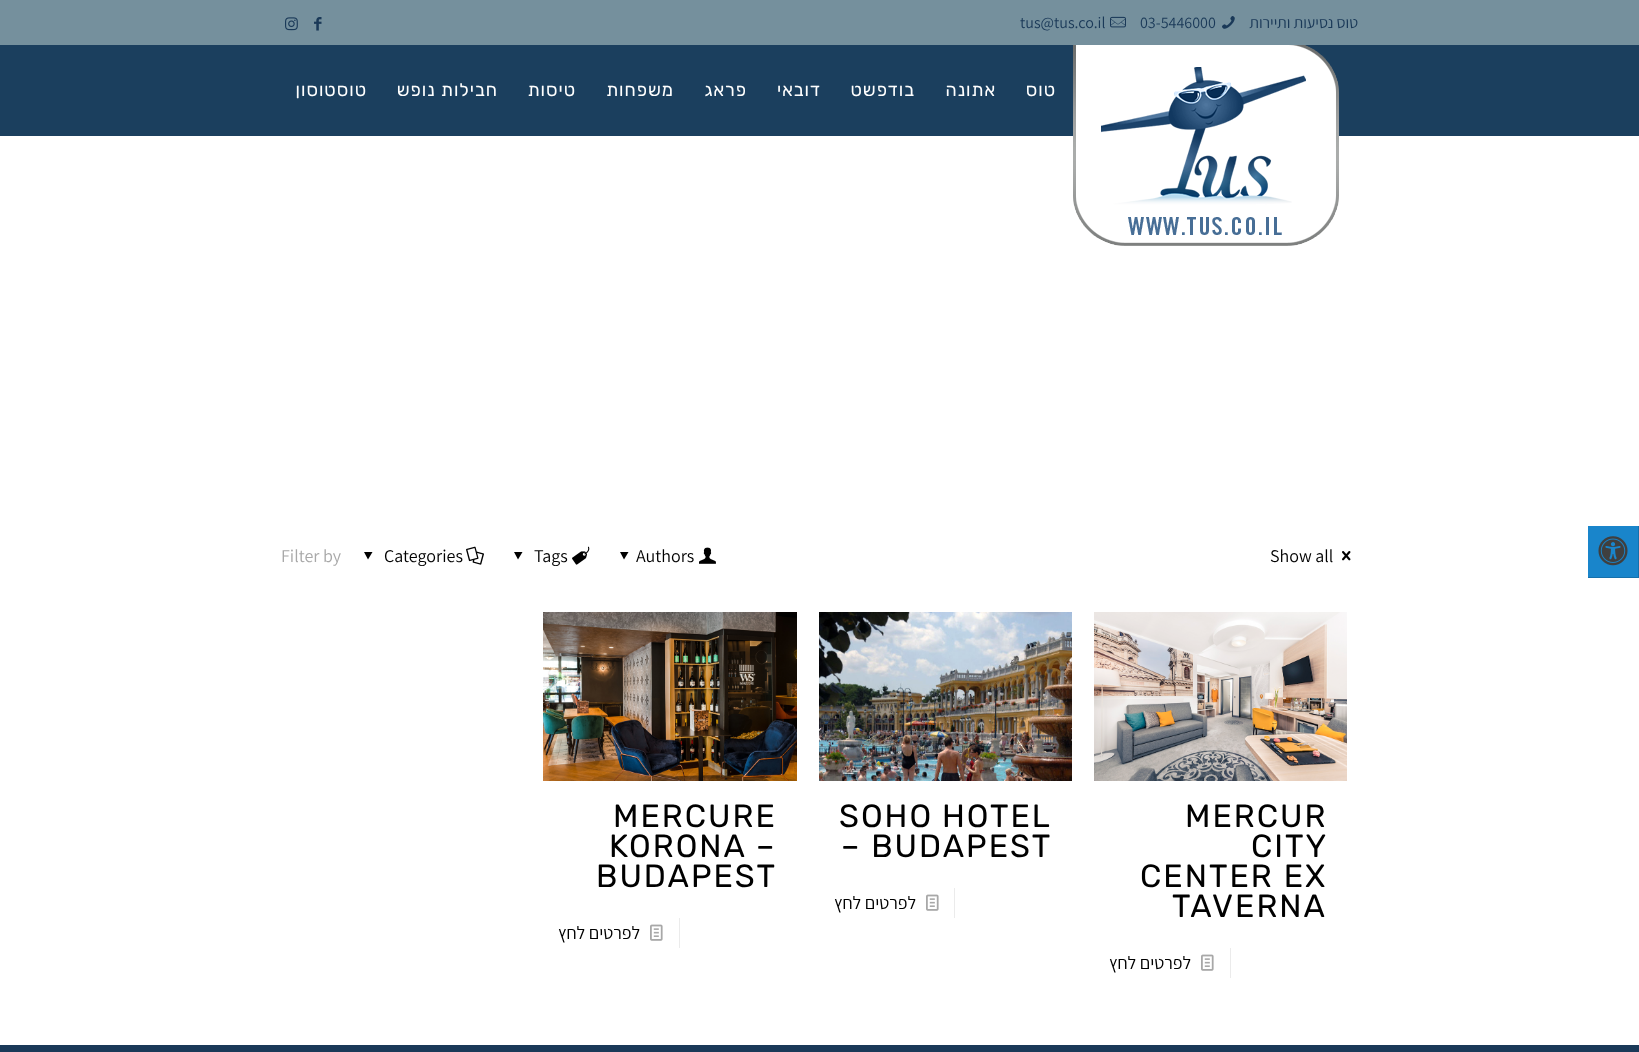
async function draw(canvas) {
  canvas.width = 1639;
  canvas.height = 1052;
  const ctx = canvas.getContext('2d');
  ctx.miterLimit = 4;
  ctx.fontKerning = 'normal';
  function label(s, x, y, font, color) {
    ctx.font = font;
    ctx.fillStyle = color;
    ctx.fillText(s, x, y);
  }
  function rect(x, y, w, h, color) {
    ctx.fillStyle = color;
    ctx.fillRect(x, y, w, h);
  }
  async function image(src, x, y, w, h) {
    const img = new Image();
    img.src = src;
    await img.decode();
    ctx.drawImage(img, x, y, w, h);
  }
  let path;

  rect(0, 0, 1639, 1052, '#fff');
  rect(0, 0, 1639, 45, '#75909d');
  await image('assets/img1.png', 285, 17, 13, 14);
  await image('assets/img2.png', 314, 17, 8, 14);
  label('tus@tus.co.il', 1020, 28, '16px Assistant', '#1a3958');
  await image('assets/img3.png', 1110, 16, 16, 12);
  label('03-5446000', 1140, 28, '16px Assistant', '#1a3958');
  await image('assets/img4.png', 1222, 16, 13, 13);
  ctx.direction = 'rtl';
  label('טוס נסיעות ותיירות', 1358, 28, '16px Assistant', '#1a3958');
  rect(0, 45, 1639, 91, '#1b3f5e');
  ctx.letterSpacing = '1px';
  label('טוסטוסון', 367, 96, '18px Rubik', '#fff');
  label('חבילות נופש', 498, 96, '18px Rubik', '#fff');
  label('טיסות', 576, 96, '18px Rubik', '#fff');
  label('משפחות', 674, 96, '18px Rubik', '#fff');
  label('פראג', 747, 96, '18px Rubik', '#fff');
  label('דובאי', 821, 96, '18px Rubik', '#fff');
  label('בודפשט', 915, 96, '18px Rubik', '#fff');
  label('אתונה', 996, 96, '18px Rubik', '#fff');
  label('טוס', 1056, 96, '18px Rubik', '#fff');
  await image('assets/img5.png', 1073, 45, 266, 201);
  ctx.letterSpacing = '0px';
  ctx.direction = 'ltr';
  label('Filter by', 281, 562, '18px Assistant', '#a8a8a8');
  ctx.fillStyle = '#000';
  path = new Path2D('M372.5 552L368 559.5L364 552Z');
  ctx.fill(path);
  label('Categories', 384, 562, '18px Assistant', '#000');
  await image('assets/img6.png', 466, 546, 18, 19);
  path = new Path2D('M522.5 552L518 559.5L514 552Z');
  ctx.fill(path);
  label('Tags', 534, 562, '18px Assistant', '#000');
  await image('assets/img7.png', 572, 546, 18, 19);
  path = new Path2D('M628.5 552L624 559.5L620 552Z');
  ctx.fill(path);
  label('Authors', 636, 562, '18px Assistant', '#000');
  await image('assets/img8.png', 699, 547, 17, 17);
  label('Show all', 1270, 562, '18px Assistant', '#000');
  await image('assets/img9.png', 1342, 551, 9, 10);
  await image('assets/img10.png', 543, 612, 254, 169);
  ctx.letterSpacing = '2px';
  label('MERCURE', 613, 827, '32px Rubik', '#000');
  label('KORONA –', 609, 857, '32px Rubik', '#000');
  label('BUDAPEST', 596, 887, '32px Rubik', '#000');
  rect(679, 918, 1, 30, '#ebebeb');
  ctx.letterSpacing = '0px';
  ctx.direction = 'rtl';
  label('לפרטים לחץ', 640, 939, '18px Assistant', '#000');
  await image('assets/img11.png', 650, 924, 13, 17);
  await image('assets/img12.png', 819, 612, 253, 169);
  ctx.letterSpacing = '2px';
  ctx.wordSpacing = '-1px';
  ctx.direction = 'ltr';
  label('SOHO HOTEL', 839, 827, '32px Rubik', '#000');
  ctx.wordSpacing = '0px';
  label('– BUDAPEST', 841, 857, '32px Rubik', '#000');
  rect(954, 888, 1, 30, '#ebebeb');
  ctx.letterSpacing = '0px';
  ctx.direction = 'rtl';
  label('לפרטים לחץ', 916, 909, '18px Assistant', '#000');
  await image('assets/img11.png', 926, 894, 13, 17);
  await image('assets/img13.png', 1094, 612, 253, 169);
  ctx.letterSpacing = '2px';
  ctx.direction = 'ltr';
  label('MERCUR', 1185, 827, '32px Rubik', '#000');
  label('CITY', 1251, 857, '32px Rubik', '#000');
  label('CENTER EX', 1140, 887, '32px Rubik', '#000');
  label('TAVERNA', 1172, 917, '32px Rubik', '#000');
  rect(1230, 948, 1, 30, '#ebebeb');
  ctx.letterSpacing = '0px';
  ctx.direction = 'rtl';
  label('לפרטים לחץ', 1191, 969, '18px Assistant', '#000');
  await image('assets/img11.png', 1201, 954, 13, 17);
  rect(0, 1045, 1639, 7, '#1a3958');
  rect(1588, 526, 50, 51, '#1985cb');
  rect(1638, 526, 1, 52, '#1670ab');
  rect(1588, 577, 51, 1, '#1670ab');
  await image('assets/img14.png', 1598, 536, 30, 30);
}

draw(document.querySelector('canvas'));
